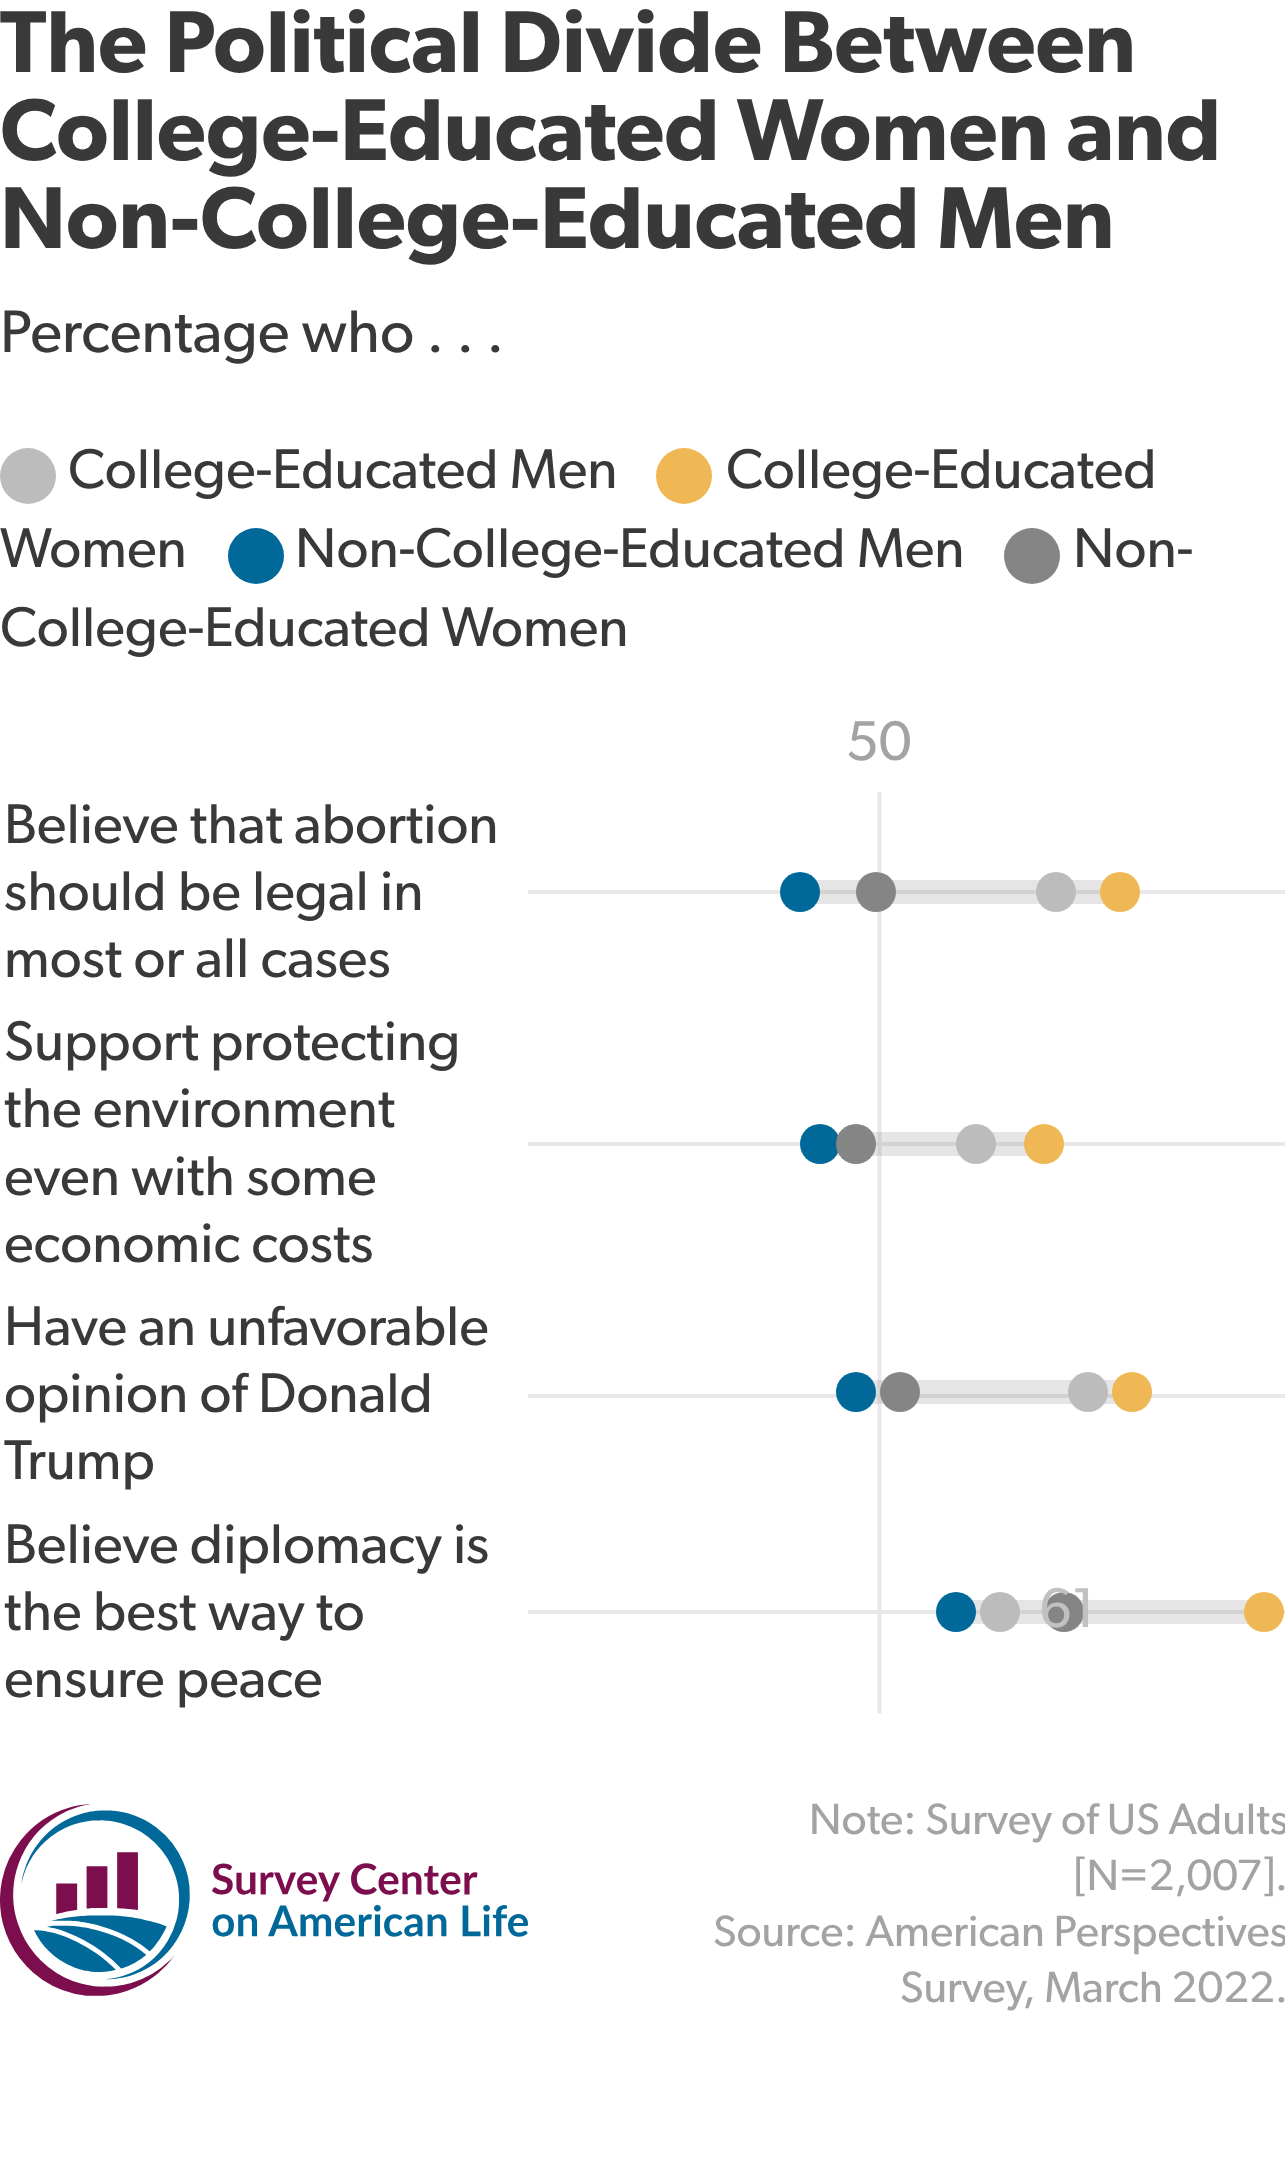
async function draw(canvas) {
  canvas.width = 1285;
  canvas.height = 2178;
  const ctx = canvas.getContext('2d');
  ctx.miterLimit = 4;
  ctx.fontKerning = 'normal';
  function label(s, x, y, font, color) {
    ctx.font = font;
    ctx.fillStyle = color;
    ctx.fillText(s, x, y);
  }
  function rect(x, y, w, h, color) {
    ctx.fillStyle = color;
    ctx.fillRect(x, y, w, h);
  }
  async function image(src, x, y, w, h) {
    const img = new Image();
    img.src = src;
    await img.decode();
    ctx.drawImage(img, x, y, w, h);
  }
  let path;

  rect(0, 0, 1285, 2178, '#fff');
  rect(972, 1600, 276, 24, '#e5e5e5');
  label('The Political Divide Between', 0, 72, '600 88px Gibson', '#3a3939');
  label('College-Educated Women and', 0, 160, '600 88px Gibson', '#3a3939');
  label('Non-College-Educated Men', 0, 248, '600 88px Gibson', '#3a3939');
  label('Percentage who . . .', 0, 352, '60px Gibson', '#3a3939');
  ctx.fillStyle = '#efb854';
  ctx.beginPath();
  ctx.arc(684, 476, 28, 0, 2 * Math.PI);
  ctx.fill();
  label('College-Educated', 726, 488, '56px Gibson', '#3a3939');
  label('Women', 0, 567, '56px Gibson', '#3a3939');
  ctx.fillStyle = '#bcbcbc';
  ctx.beginPath();
  ctx.arc(28, 476, 28, 0, 2 * Math.PI);
  ctx.fill();
  label('College-Educated Men', 68, 488, '56px Gibson', '#3a3939');
  ctx.fillStyle = '#006999';
  ctx.beginPath();
  ctx.arc(256, 556, 28, 0, 2 * Math.PI);
  ctx.fill();
  label('Non-College-Educated Men', 295, 567, '56px Gibson', '#3a3939');
  ctx.fillStyle = '#858585';
  ctx.beginPath();
  ctx.arc(1032, 556, 28, 0, 2 * Math.PI);
  ctx.fill();
  label('Non-', 1073, 567, '56px Gibson', '#3a3939');
  label('College-Educated Women', 0, 646, '56px Gibson', '#3a3939');
  label('50', 846, 760, '56px Gibson', '#a3a3a3');
  label('Believe that abortion', 4, 843, '56px Gibson', '#3a3939');
  label('should be legal in', 4, 910, '56px Gibson', '#3a3939');
  label('most or all cases', 4, 977, '56px Gibson', '#3a3939');
  path = new Path2D('M879.5 1713.5V792');
  ctx.strokeStyle = '#e8e8e8';
  ctx.lineWidth = 4;
  ctx.stroke(path);
  rect(528, 890, 757, 4, '#e8e8e8');
  rect(816, 880, 288, 24, '#7e7e7e33');
  ctx.fillStyle = '#006999';
  ctx.beginPath();
  ctx.arc(800, 892, 20, 0, 2 * Math.PI);
  ctx.fill();
  ctx.fillStyle = '#858585';
  ctx.beginPath();
  ctx.arc(876, 892, 20, 0, 2 * Math.PI);
  ctx.fill();
  ctx.fillStyle = '#bcbcbc';
  ctx.beginPath();
  ctx.arc(1056, 892, 20, 0, 2 * Math.PI);
  ctx.fill();
  ctx.fillStyle = '#efb854';
  ctx.beginPath();
  ctx.arc(1120, 892, 20, 0, 2 * Math.PI);
  ctx.fill();
  rect(528, 1142, 757, 4, '#e8e8e8');
  rect(528, 1394, 757, 4, '#e8e8e8');
  rect(528, 1610, 757, 4, '#e8e8e8');
  rect(975, 1610, 270, 4, '#d3d3d3');
  label('Support protecting', 4, 1060, '56px Gibson', '#3a3939');
  label('the environment', 4, 1127, '56px Gibson', '#3a3939');
  label('even with some', 4, 1195, '56px Gibson', '#3a3939');
  label('economic costs', 4, 1262, '56px Gibson', '#3a3939');
  rect(836, 1132, 192, 24, '#7e7e7e33');
  ctx.fillStyle = '#006999';
  ctx.beginPath();
  ctx.arc(820, 1144, 20, 0, 2 * Math.PI);
  ctx.fill();
  ctx.fillStyle = '#858585';
  ctx.beginPath();
  ctx.arc(856, 1144, 20, 0, 2 * Math.PI);
  ctx.fill();
  ctx.fillStyle = '#bcbcbc';
  ctx.beginPath();
  ctx.arc(976, 1144, 20, 0, 2 * Math.PI);
  ctx.fill();
  ctx.fillStyle = '#efb854';
  ctx.beginPath();
  ctx.arc(1044, 1144, 20, 0, 2 * Math.PI);
  ctx.fill();
  label('Have an unfavorable', 4, 1345, '56px Gibson', '#3a3939');
  label('opinion of Donald', 4, 1412, '56px Gibson', '#3a3939');
  label('Trump', 4, 1479, '56px Gibson', '#3a3939');
  rect(872, 1380, 244, 24, '#7e7e7e33');
  ctx.fillStyle = '#006999';
  ctx.beginPath();
  ctx.arc(856, 1392, 20, 0, 2 * Math.PI);
  ctx.fill();
  ctx.fillStyle = '#858585';
  ctx.beginPath();
  ctx.arc(900, 1392, 20, 0, 2 * Math.PI);
  ctx.fill();
  ctx.fillStyle = '#bcbcbc';
  ctx.beginPath();
  ctx.arc(1088, 1392, 20, 0, 2 * Math.PI);
  ctx.fill();
  ctx.fillStyle = '#efb854';
  ctx.beginPath();
  ctx.arc(1132, 1392, 20, 0, 2 * Math.PI);
  ctx.fill();
  label('Believe diplomacy is', 4, 1563, '56px Gibson', '#3a3939');
  label('the best way to', 4, 1630, '56px Gibson', '#3a3939');
  label('ensure peace', 4, 1697, '56px Gibson', '#3a3939');
  ctx.fillStyle = '#006999';
  ctx.beginPath();
  ctx.arc(956, 1612, 20, 0, 2 * Math.PI);
  ctx.fill();
  ctx.fillStyle = '#bcbcbc';
  ctx.beginPath();
  ctx.arc(1000, 1612, 20, 0, 2 * Math.PI);
  ctx.fill();
  ctx.fillStyle = '#858585';
  ctx.beginPath();
  ctx.arc(1064, 1612, 20, 0, 2 * Math.PI);
  ctx.fill();
  label('61', 1039, 1627, '56px Gibson', '#c1c1c1');
  ctx.fillStyle = '#efb854';
  ctx.beginPath();
  ctx.arc(1264, 1612, 20, 0, 2 * Math.PI);
  ctx.fill();
  await image('assets/img1.png', 0, 1804, 528, 192);
  label('Note: Survey of US Adults', 809, 1834, '44px Gibson', '#a3a3a3');
  label('[N=2,007].', 1074, 1890, '44px Gibson', '#a3a3a3');
  label('Source: American Perspectives', 713, 1946, '44px Gibson', '#a3a3a3');
  label('Survey, March 2022.', 900, 2002, '44px Gibson', '#a3a3a3');
}

draw(document.querySelector('canvas'));
